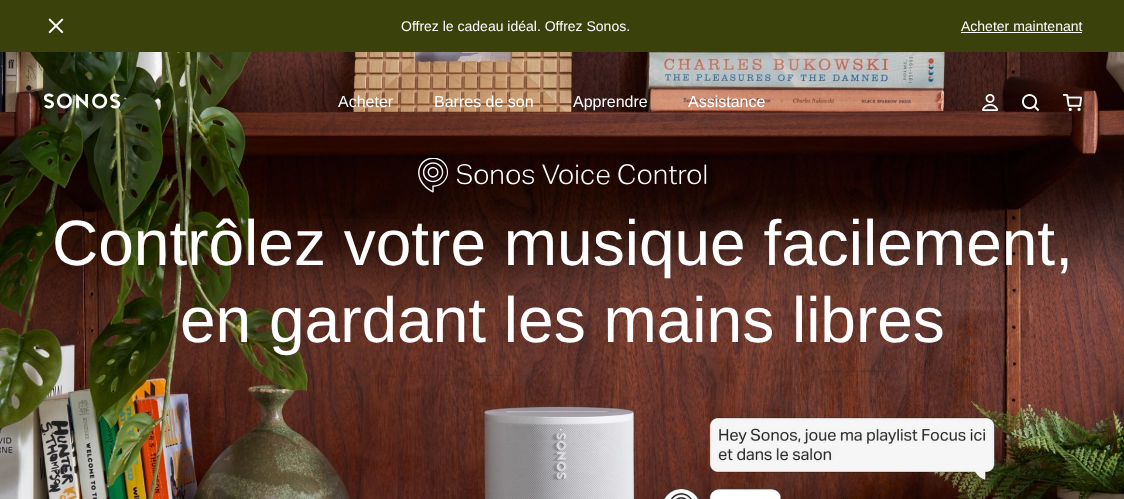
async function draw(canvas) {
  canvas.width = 1124;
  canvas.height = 499;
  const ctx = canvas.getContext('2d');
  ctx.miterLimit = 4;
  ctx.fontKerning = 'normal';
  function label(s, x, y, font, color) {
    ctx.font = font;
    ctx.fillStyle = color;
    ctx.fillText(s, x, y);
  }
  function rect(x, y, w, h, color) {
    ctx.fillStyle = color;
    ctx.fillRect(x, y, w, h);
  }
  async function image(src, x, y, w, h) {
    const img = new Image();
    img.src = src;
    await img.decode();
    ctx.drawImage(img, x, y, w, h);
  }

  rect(0, 0, 1124, 499, '#fff');
  rect(0, 0, 1124, 52, '#3a410b');
  await image('assets/img1.png', 48, 18, 16, 16);
  label('Offrez le cadeau idéal. Offrez Sonos.', 401, 31, '14px Liberation Sans', '#fff');
  label('Acheter maintenant', 961, 31, '14px Liberation Sans', '#fff');
  rect(961, 32, 121, 1, '#fff');
  await image('assets/img6.png', 0, 52, 1124, 447);
  await image('assets/img2.png', 43, 93, 78, 16);
  label('Acheter', 338, 107, '16px Liberation Sans', '#fff');
  label('Barres de son', 434, 107, '16px Liberation Sans', '#fff');
  label('Apprendre', 573, 107, '16px Liberation Sans', '#fff');
  label('Assistance', 688, 107, '16px Liberation Sans', '#fff');
  await image('assets/img3.png', 982, 94, 16, 17);
  await image('assets/img4.png', 1022, 94, 17, 17);
  await image('assets/img5.png', 1063, 94, 19, 17);
  await image('assets/img7.png', 418, 158, 289, 35);
  label('Contrôlez votre musique facilement,', 52, 265, '64px Liberation Sans', '#fff');
  label('en gardant les mains libres', 180, 342, '64px Liberation Sans', '#fff');
}

draw(document.querySelector('canvas'));
